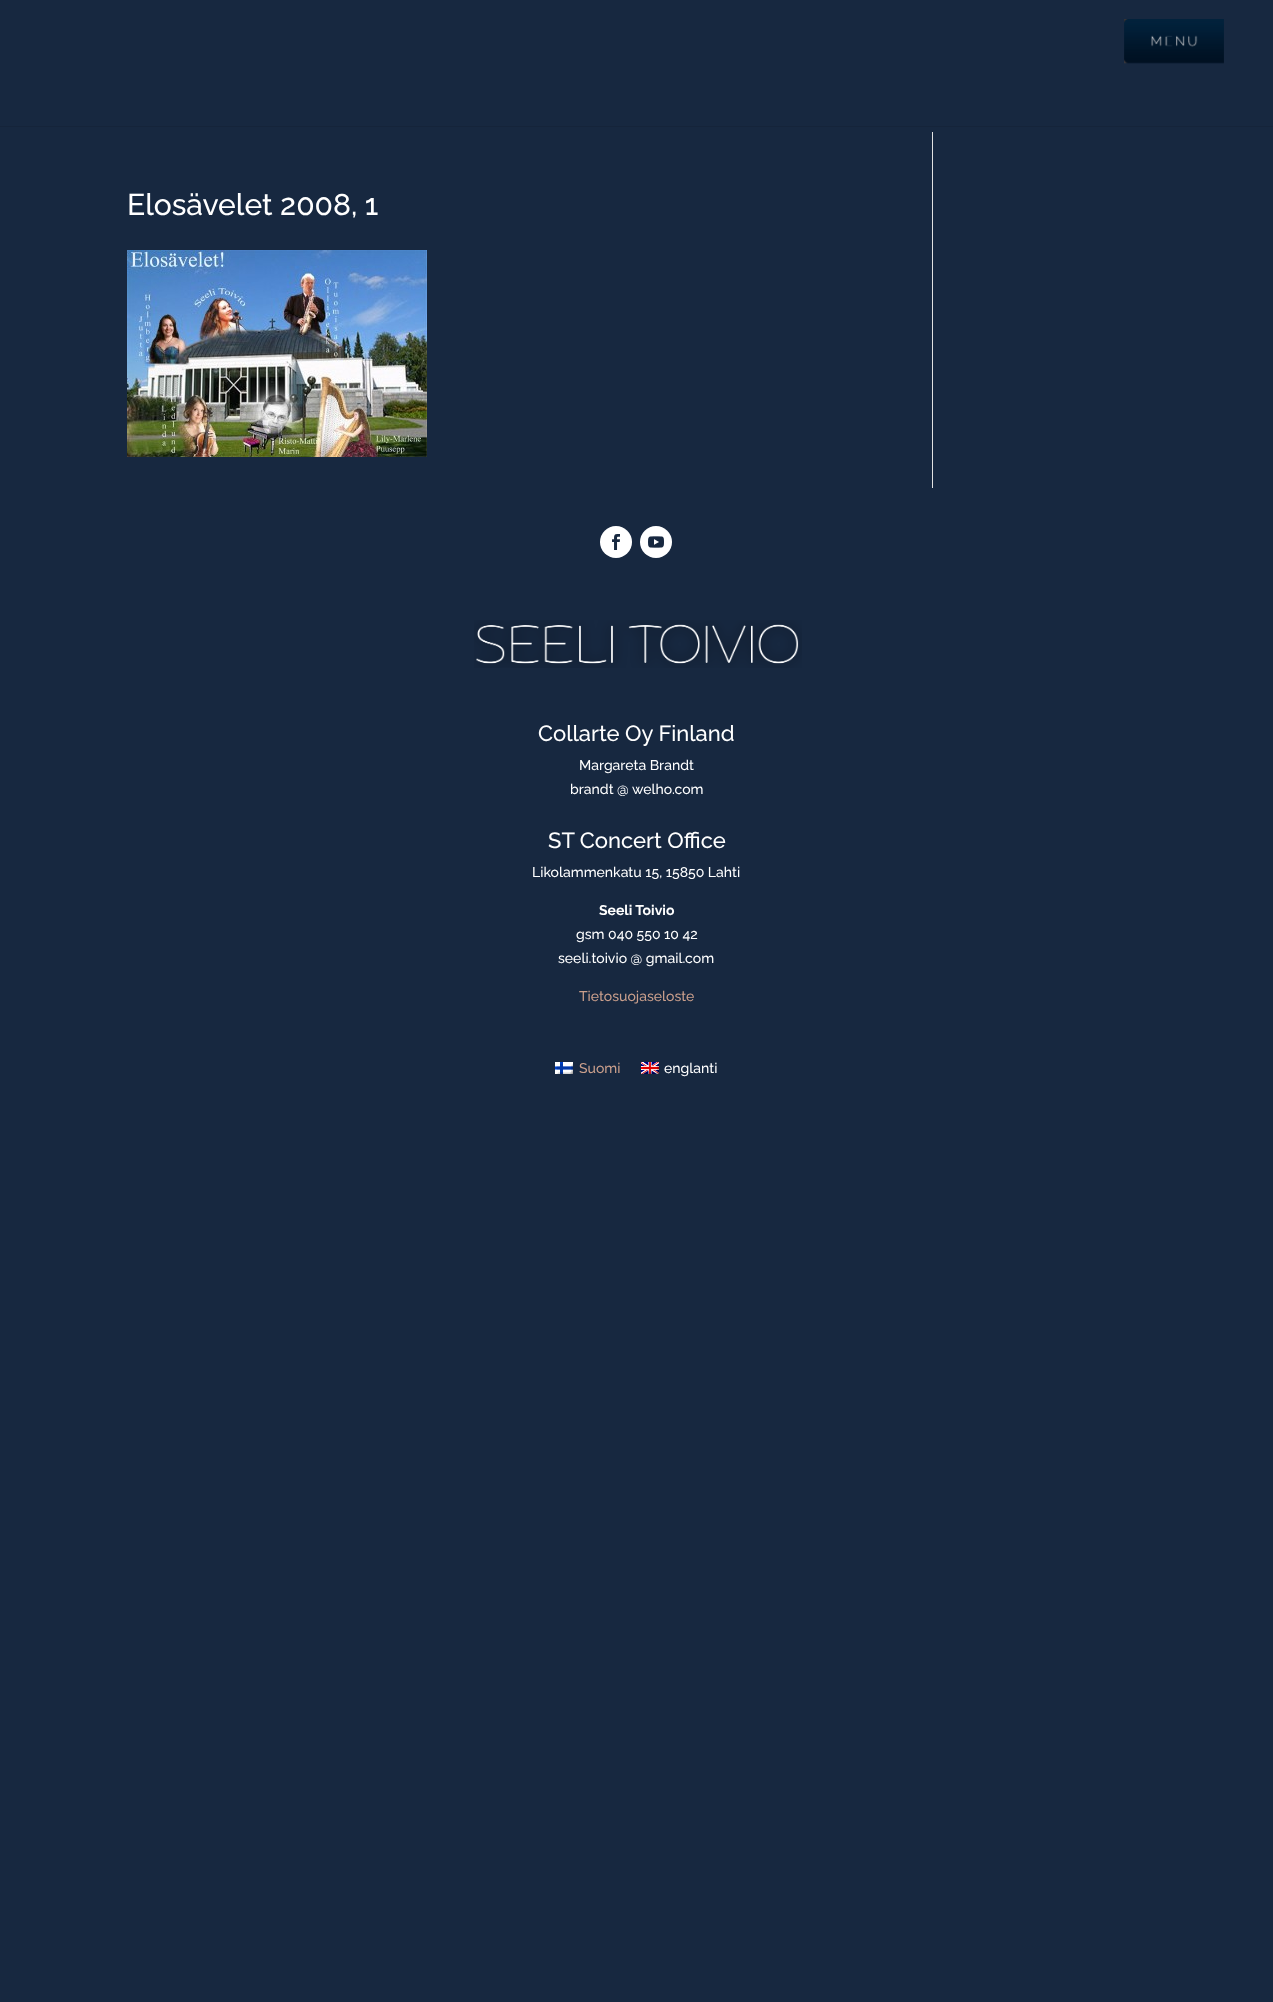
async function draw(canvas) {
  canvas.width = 1273;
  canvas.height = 2002;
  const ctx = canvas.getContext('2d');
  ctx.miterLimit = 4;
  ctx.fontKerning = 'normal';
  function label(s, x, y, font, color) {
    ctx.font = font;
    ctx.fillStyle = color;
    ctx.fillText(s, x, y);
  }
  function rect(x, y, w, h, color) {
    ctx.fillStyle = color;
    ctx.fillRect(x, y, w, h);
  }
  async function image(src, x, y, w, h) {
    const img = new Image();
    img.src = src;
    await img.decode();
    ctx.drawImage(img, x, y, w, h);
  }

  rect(0, 0, 1273, 2002, '#172840');
  rect(0, 126, 1273, 1, '#15243a');
  await image('assets/img1.png', 1124, 19, 100, 45);
  label('Elosävelet 2008, 1', 127, 215, '500 30px Raleway', '#fff');
  await image('assets/img2.png', 127, 250, 300, 207);
  rect(932, 132, 1, 356, '#e2e2e2');
  ctx.fillStyle = '#fff';
  ctx.beginPath();
  ctx.arc(616, 542, 16, 0, 2 * Math.PI);
  ctx.fill();
  await image('assets/img3.png', 612, 534, 8, 16);
  ctx.beginPath();
  ctx.arc(656, 542, 16, 0, 2 * Math.PI);
  ctx.fill();
  await image('assets/img4.png', 648, 536, 16, 12);
  await image('assets/img5.png', 474, 620, 328, 48);
  label('Collarte Oy Finland', 538, 741, '500 22px Raleway', '#fff');
  label('Margareta Brandt', 579, 770, '500 14px Raleway', '#fff');
  label('brandt @ welho.com', 570, 794, '500 14px Raleway', '#fff');
  label('ST Concert Office', 548, 848, '500 22px Raleway', '#fff');
  label('Likolammenkatu 15, 15850 Lahti', 532, 877, '500 14px Raleway', '#fff');
  label('Seeli Toivio', 599, 915, 'bold 14px Raleway', '#fff');
  label('gsm 040 550 10 42', 576, 939, '500 14px Raleway', '#fff');
  label('seeli.toivio @ gmail.com', 558, 963, '500 14px Raleway', '#fff');
  label('Tietosuojaseloste', 579, 1001, '500 14px Raleway', '#ca9f8c');
  await image('assets/img6.png', 555, 1062, 18, 12);
  label('Suomi', 579, 1073, '500 14px Raleway', '#ca9f8c');
  await image('assets/img7.png', 641, 1062, 18, 12);
  label('englanti', 664, 1073, '500 14px Raleway', '#fff');
}

draw(document.querySelector('canvas'));
